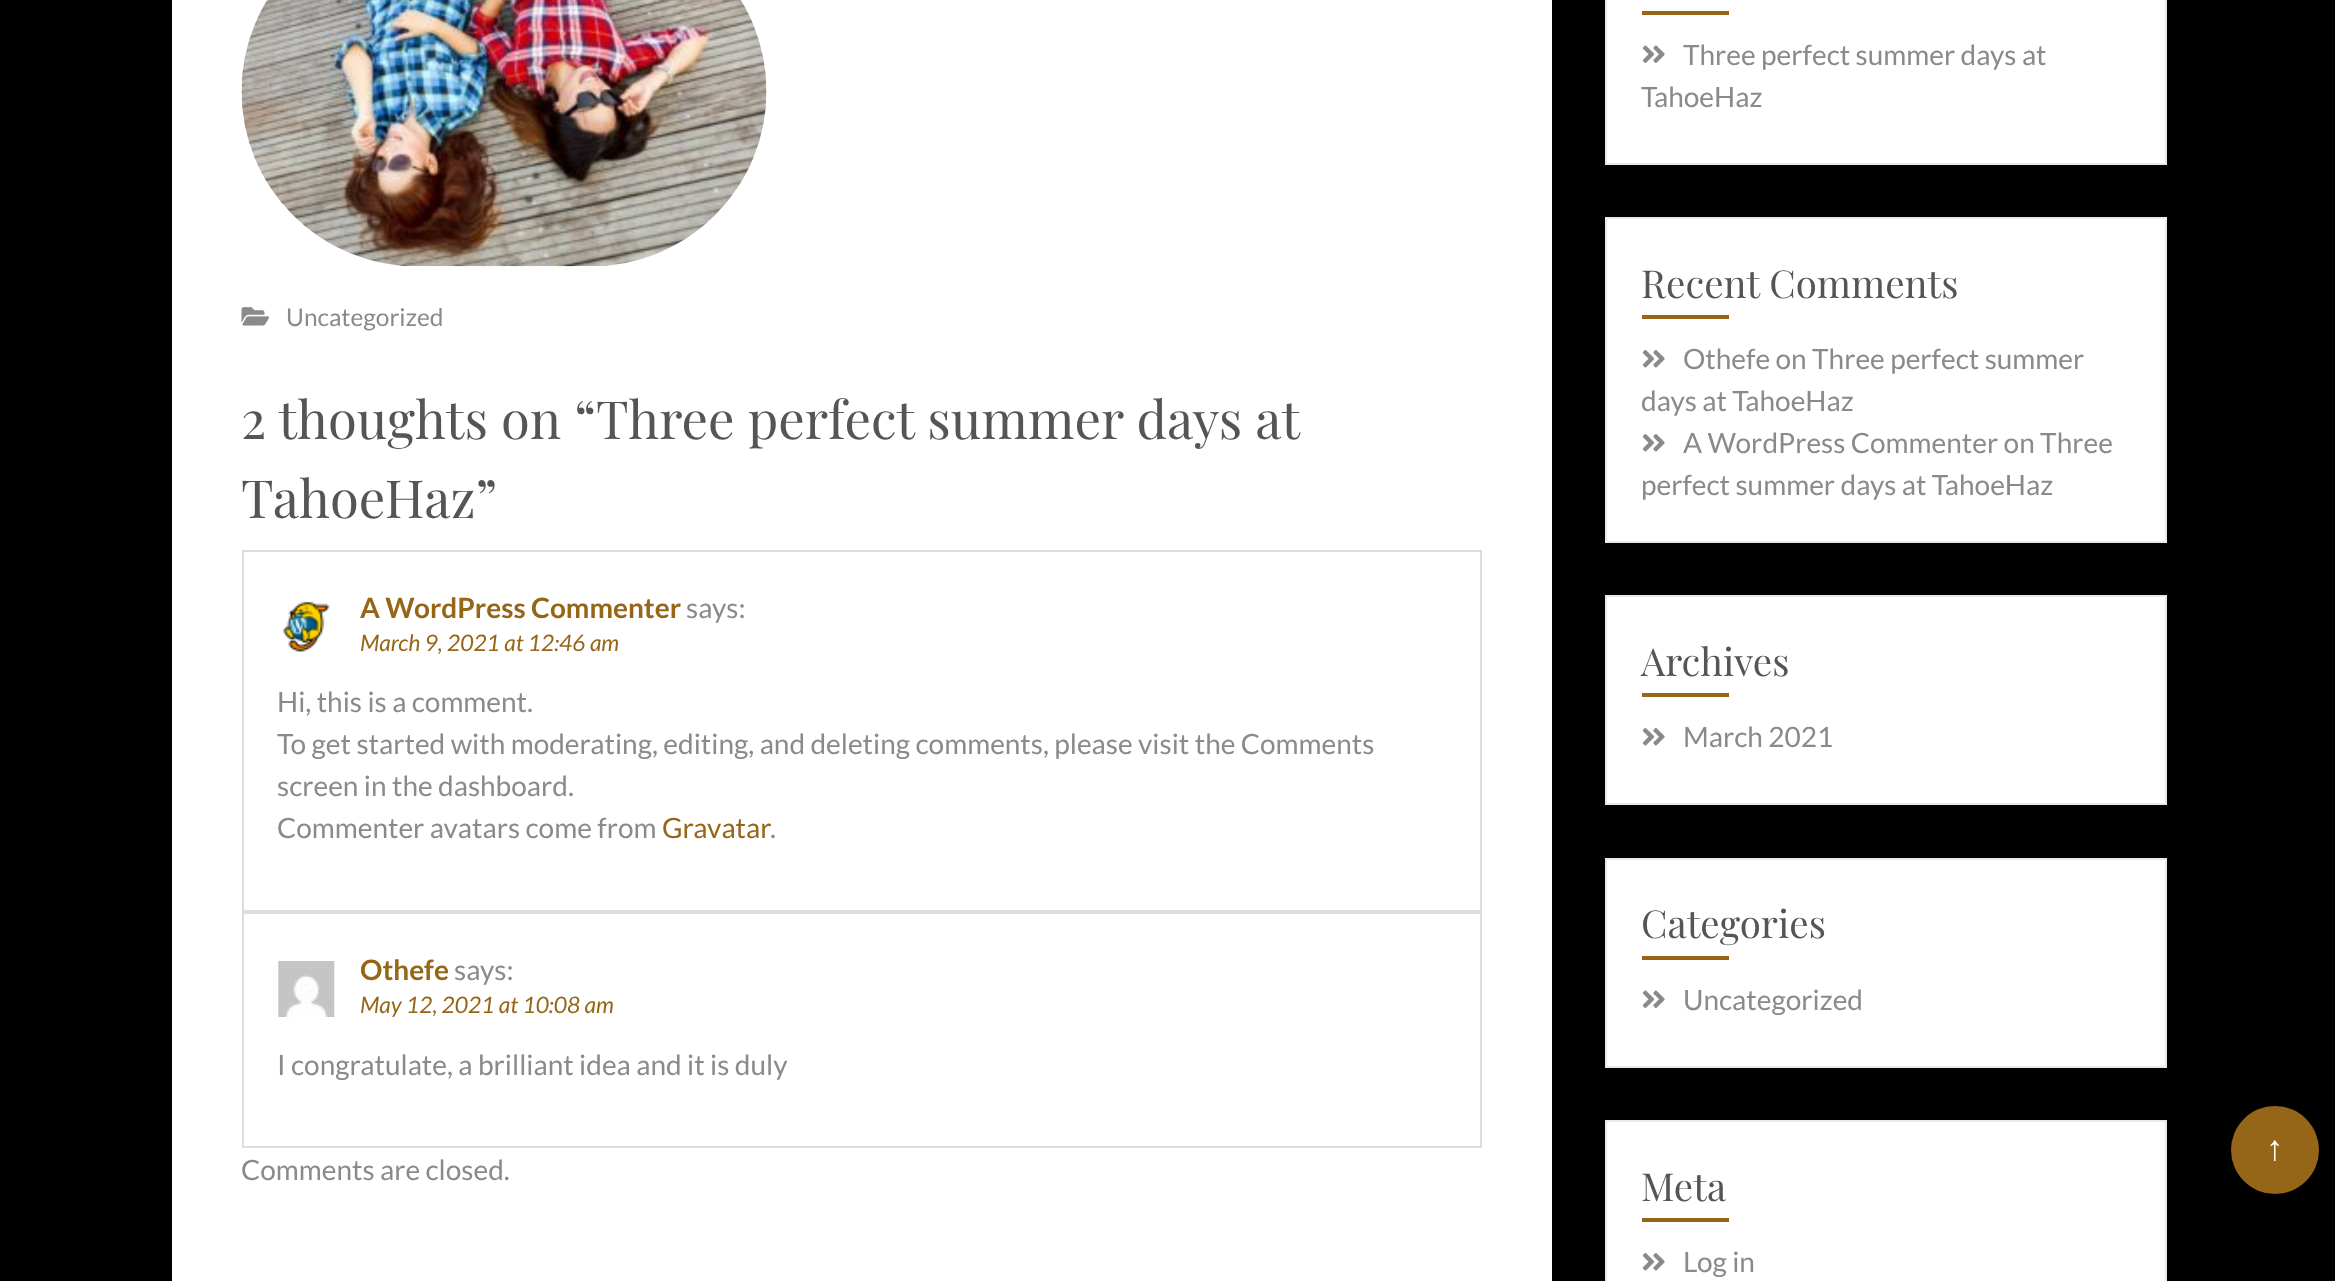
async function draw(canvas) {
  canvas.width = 2335;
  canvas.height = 1281;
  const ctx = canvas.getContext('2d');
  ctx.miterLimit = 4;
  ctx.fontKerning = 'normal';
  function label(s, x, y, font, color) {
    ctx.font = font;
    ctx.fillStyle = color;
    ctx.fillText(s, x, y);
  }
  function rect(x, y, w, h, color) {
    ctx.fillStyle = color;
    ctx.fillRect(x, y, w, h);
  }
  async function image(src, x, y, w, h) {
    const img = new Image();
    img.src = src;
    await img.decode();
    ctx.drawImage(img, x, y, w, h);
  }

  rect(0, 0, 2335, 1281, '#000');
  rect(172, 0, 1380, 1281, '#fff');
  await image('assets/img1.png', 241, 0, 526, 267);
  await image('assets/img2.png', 241, 307, 28, 19);
  label('Uncategorized', 286, 326, '24.5px Lato', '#8a8a8a');
  label('2 thoughts on “', 241, 439, '52.5px Playfair Display', '#555');
  label('Three perfect summer days at', 596, 439, '52.5px Playfair Display', '#555');
  label('TahoeHaz”', 241, 518, '52.5px Playfair Display', '#555');
  ctx.strokeStyle = '#ddd';
  ctx.lineWidth = 2;
  ctx.strokeRect(243, 551, 1238, 360);
  await image('assets/img3.png', 283, 601, 47, 51);
  label('A WordPress Commenter', 360, 618, 'bold 28px Lato', '#966618');
  label('says:', 686, 618, '28px Lato', '#8a8a8a');
  label('March 9, 2021 at 12:46 am', 360, 651, 'italic 22.75px Lato', '#966618');
  label('Hi, this is a comment.', 277, 712, '28px Lato', '#8a8a8a');
  label('To get started with moderating, editing, and deleting comments, please visit the Comments', 277, 754, '28px Lato', '#8a8a8a');
  label('screen in the dashboard.', 277, 796, '28px Lato', '#8a8a8a');
  label('Commenter avatars come from', 277, 838, '28px Lato', '#8a8a8a');
  label('Gravatar', 662, 838, '28px Lato', '#966618');
  label('.', 770, 838, '28px Lato', '#8a8a8a');
  ctx.strokeRect(243, 913, 1238, 234);
  await image('assets/img4.png', 278, 961, 57, 56);
  label('Othefe', 360, 980, 'bold 28px Lato', '#966618');
  label('says:', 454, 980, '28px Lato', '#8a8a8a');
  label('May 12, 2021 at 10:08 am', 360, 1013, 'italic 22.75px Lato', '#966618');
  label('I congratulate, a brilliant idea and it is duly', 277, 1075, '28px Lato', '#8a8a8a');
  label('Comments are closed.', 241, 1180, '28px Lato', '#8a8a8a');
  ctx.fillStyle = '#fff';
  ctx.beginPath();
  ctx.rect(1606, -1, 560, 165);
  ctx.fill();
  ctx.strokeStyle = '#e9e9e9';
  ctx.stroke();
  rect(1642, 11, 87, 4, '#966618');
  label('Three perfect summer days at', 1683, 65, '28px Lato', '#8a8a8a');
  label('TahoeHaz', 1641, 107, '28px Lato', '#8a8a8a');
  await image('assets/img5.png', 1642, 45, 23, 18);
  ctx.fillStyle = '#fff';
  ctx.beginPath();
  ctx.rect(1606, 218, 560, 324);
  ctx.fill();
  ctx.stroke();
  label('Recent Comments', 1641, 298, '38.5px Playfair Display', '#555');
  rect(1642, 315, 87, 4, '#966618');
  await image('assets/img6.png', 1642, 350, 23, 18);
  label('Othefe on Three perfect summer', 1683, 369, '28px Lato', '#8a8a8a');
  label('days at TahoeHaz', 1641, 411, '28px Lato', '#8a8a8a');
  await image('assets/img6.png', 1642, 434, 23, 18);
  label('A WordPress Commenter on Three', 1683, 453, '28px Lato', '#8a8a8a');
  label('perfect summer days at TahoeHaz', 1641, 495, '28px Lato', '#8a8a8a');
  ctx.fillStyle = '#fff';
  ctx.beginPath();
  ctx.rect(1606, 596, 560, 208);
  ctx.fill();
  ctx.stroke();
  label('Archives', 1641, 676, '38.5px Playfair Display', '#555');
  rect(1642, 693, 87, 4, '#966618');
  await image('assets/img6.png', 1642, 728, 23, 18);
  label('March 2021', 1683, 747, '28px Lato', '#8a8a8a');
  ctx.fillStyle = '#fff';
  ctx.beginPath();
  ctx.rect(1606, 859, 560, 208);
  ctx.fill();
  ctx.stroke();
  label('Categories', 1641, 938, '38.5px Playfair Display', '#555');
  rect(1642, 956, 87, 4, '#966618');
  await image('assets/img5.png', 1642, 990, 23, 18);
  label('Uncategorized', 1683, 1010, '28px Lato', '#8a8a8a');
  ctx.fillStyle = '#fff';
  ctx.beginPath();
  ctx.rect(1606, 1121, 560, 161);
  ctx.fill();
  ctx.stroke();
  label('Meta', 1641, 1201, '38.5px Playfair Display', '#555');
  rect(1642, 1218, 87, 4, '#966618');
  await image('assets/img6.png', 1642, 1253, 23, 18);
  label('Log in', 1683, 1272, '28px Lato', '#8a8a8a');
  ctx.fillStyle = '#966618';
  ctx.beginPath();
  ctx.arc(2275, 1150, 44, 0, 2 * Math.PI);
  ctx.fill();
  label('↑', 2266, 1160, '35px Liberation Sans', '#fff');
}

draw(document.querySelector('canvas'));
